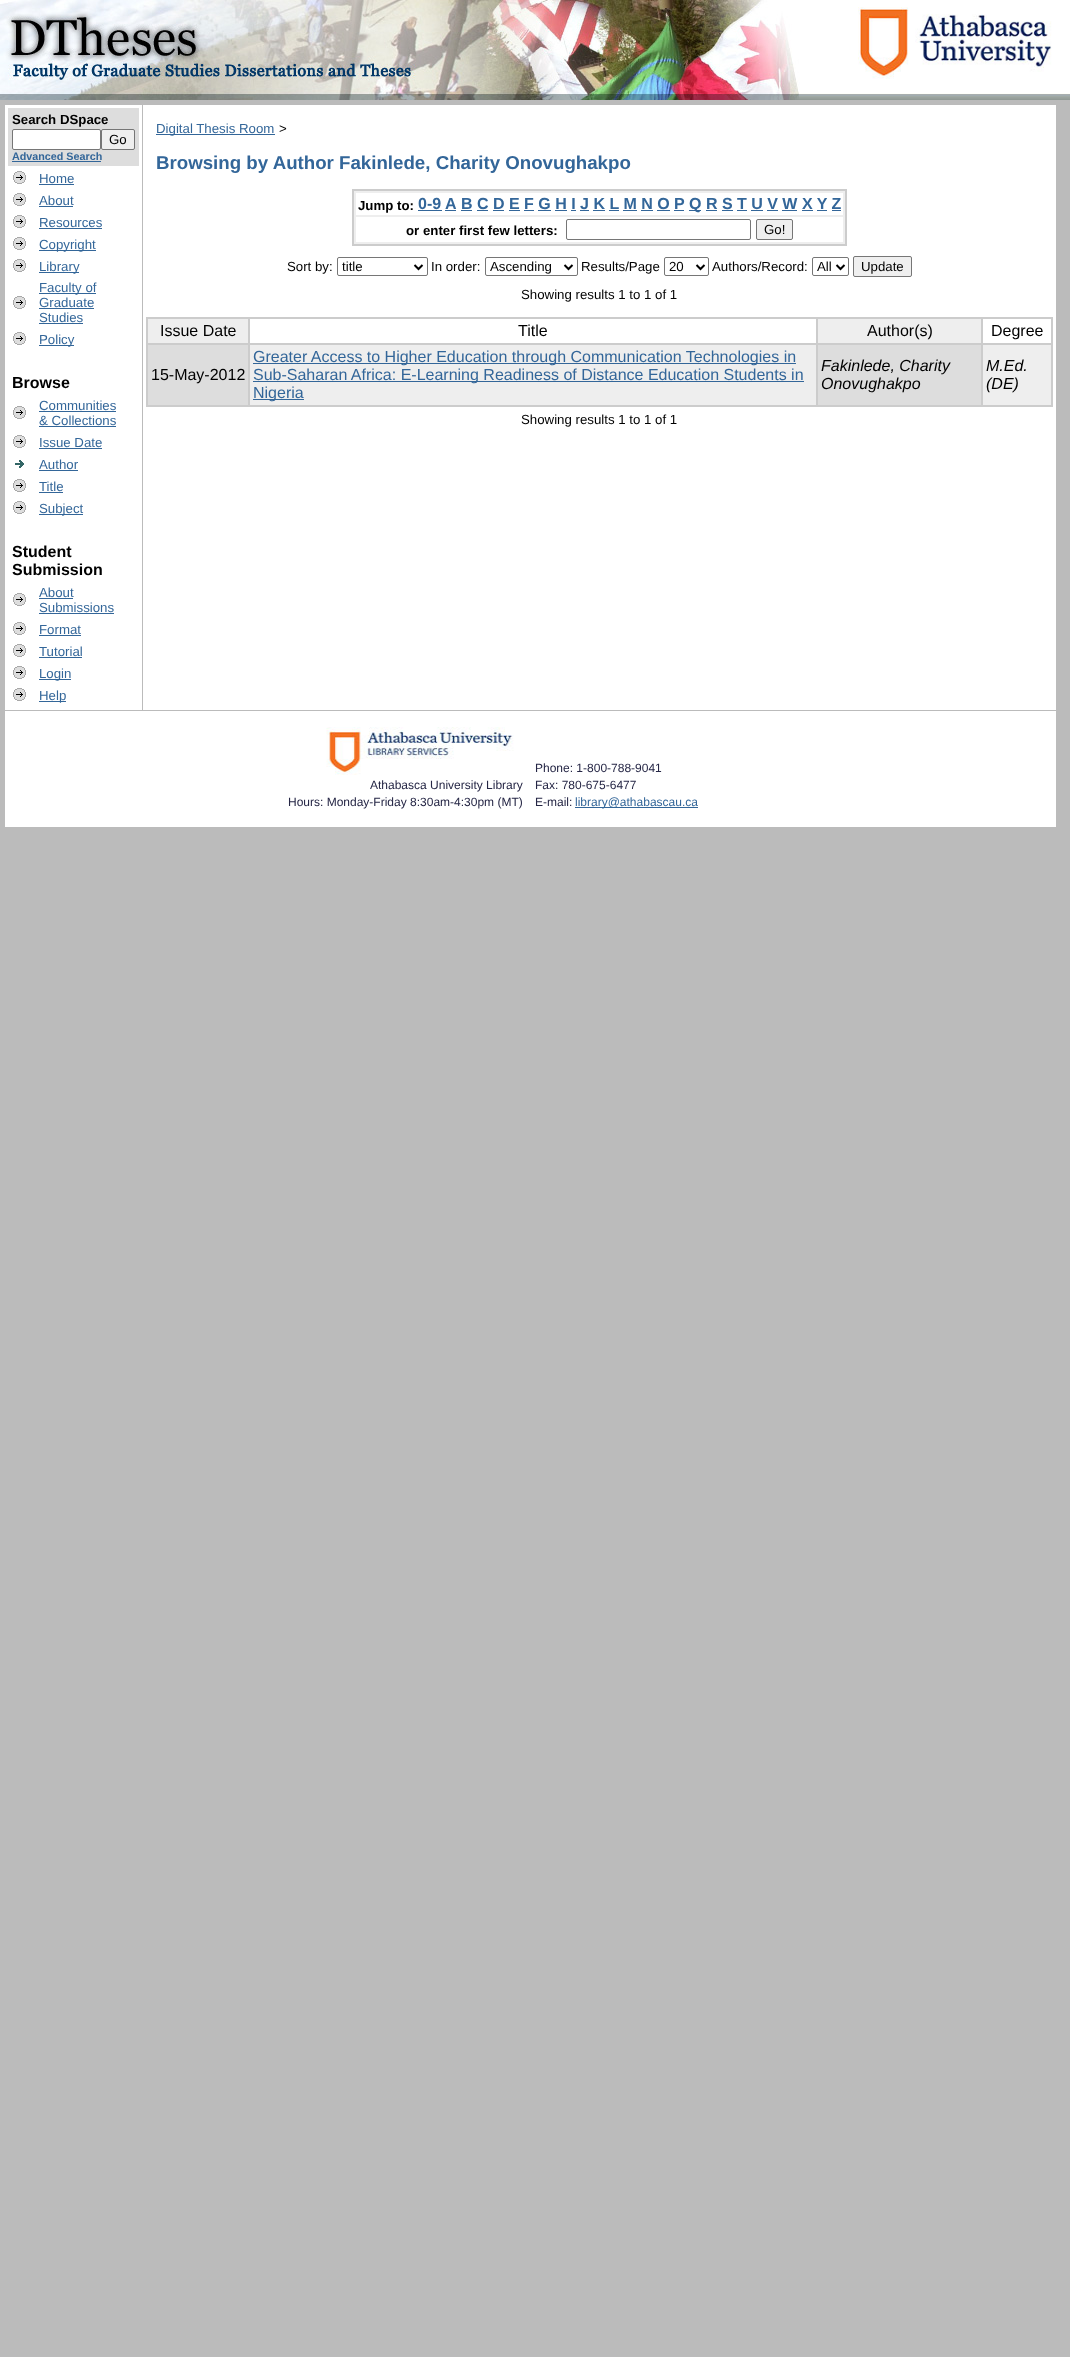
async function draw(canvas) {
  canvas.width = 1070;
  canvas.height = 2357;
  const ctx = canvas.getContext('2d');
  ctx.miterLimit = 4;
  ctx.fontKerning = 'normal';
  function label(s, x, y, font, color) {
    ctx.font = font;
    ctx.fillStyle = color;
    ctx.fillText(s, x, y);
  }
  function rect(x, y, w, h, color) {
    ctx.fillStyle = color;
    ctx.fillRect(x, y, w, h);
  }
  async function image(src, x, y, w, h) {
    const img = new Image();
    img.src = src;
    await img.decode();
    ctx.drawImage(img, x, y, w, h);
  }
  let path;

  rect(0, 0, 1070, 2357, '#bbb');
  rect(800, 0, 270, 93, '#fff');
  await image('assets/img1.png', 0, 0, 800, 100);
  await image('assets/img2.png', 800, 93, 41, 7);
  await image('assets/img3.png', 841, 93, 229, 7);
  await image('assets/img4.png', 858, 7, 194, 72);
  rect(5, 105, 137, 605, '#fff');
  rect(8, 108, 131, 58, '#ddd');
  label('Search DSpace', 12, 124, 'bold 13.25px Liberation Sans', '#000');
  ctx.fillStyle = '#fff';
  ctx.beginPath();
  ctx.roundRect(12.5, 129.5, 88, 20, 1.5);
  ctx.fill();
  ctx.strokeStyle = '#767676';
  ctx.stroke();
  ctx.fillStyle = '#efefef';
  ctx.beginPath();
  ctx.roundRect(101.5, 129.5, 33, 20, 1.5);
  ctx.fill();
  ctx.stroke();
  label('Go', 109, 144, '13.25px Liberation Sans', '#000');
  label('Advanced Search', 12, 160, 'bold 10.75px Liberation Sans', '#369');
  rect(12, 161, 89, 1, '#369');
  await image('assets/img5.png', 13, 171, 13, 13);
  label('Home', 39, 183, '13.25px Liberation Sans', '#369');
  rect(39, 184, 35, 1, '#369');
  await image('assets/img5.png', 13, 193, 13, 13);
  label('About', 39, 205, '13.25px Liberation Sans', '#369');
  rect(39, 206, 34, 1, '#369');
  await image('assets/img5.png', 13, 215, 13, 13);
  label('Resources', 39, 227, '13.25px Liberation Sans', '#369');
  rect(39, 228, 63, 1, '#369');
  await image('assets/img5.png', 13, 237, 13, 13);
  rect(39, 250, 57, 1, '#369');
  label('Copyright', 39, 249, '13.25px Liberation Sans', '#369');
  await image('assets/img5.png', 13, 259, 13, 13);
  rect(39, 272, 40, 1, '#369');
  label('Library', 39, 271, '13.25px Liberation Sans', '#369');
  await image('assets/img5.png', 13, 296, 13, 13);
  rect(39, 293, 57, 1, '#369');
  label('Faculty of', 39, 292, '13.25px Liberation Sans', '#369');
  label('Graduate', 39, 307, '13.25px Liberation Sans', '#369');
  rect(39, 308, 55, 1, '#369');
  label('Studies', 39, 322, '13.25px Liberation Sans', '#369');
  rect(39, 323, 44, 1, '#369');
  await image('assets/img5.png', 13, 332, 13, 13);
  rect(39, 345, 35, 1, '#369');
  label('Policy', 39, 344, '13.25px Liberation Sans', '#369');
  label('Browse', 12, 388, 'bold 16px Liberation Sans', '#000');
  await image('assets/img5.png', 13, 406, 13, 13);
  label('Communities', 39, 410, '13.25px Liberation Sans', '#369');
  rect(39, 411, 77, 1, '#369');
  label('& Collections', 39, 425, '13.25px Liberation Sans', '#369');
  rect(39, 426, 77, 1, '#369');
  await image('assets/img5.png', 13, 435, 13, 13);
  label('Issue Date', 39, 447, '13.25px Liberation Sans', '#369');
  rect(39, 448, 63, 1, '#369');
  await image('assets/img6.png', 15, 460, 9, 8);
  label('Author', 39, 469, '13.25px Liberation Sans', '#369');
  rect(39, 470, 39, 1, '#369');
  await image('assets/img5.png', 13, 479, 13, 13);
  label('Title', 39, 491, '13.25px Liberation Sans', '#369');
  rect(39, 492, 24, 1, '#369');
  await image('assets/img5.png', 13, 501, 13, 13);
  rect(39, 514, 44, 1, '#369');
  label('Subject', 39, 513, '13.25px Liberation Sans', '#369');
  label('Student', 12, 557, 'bold 16px Liberation Sans', '#000');
  label('Submission', 12, 575, 'bold 16px Liberation Sans', '#000');
  await image('assets/img5.png', 13, 593, 13, 13);
  label('About', 39, 597, '13.25px Liberation Sans', '#369');
  rect(39, 598, 34, 1, '#369');
  label('Submissions', 39, 612, '13.25px Liberation Sans', '#369');
  rect(39, 613, 75, 1, '#369');
  await image('assets/img5.png', 13, 622, 13, 13);
  label('Format', 39, 634, '13.25px Liberation Sans', '#369');
  rect(39, 635, 42, 1, '#369');
  await image('assets/img5.png', 13, 644, 13, 13);
  label('Tutorial', 39, 656, '13.25px Liberation Sans', '#369');
  rect(39, 657, 43, 1, '#369');
  await image('assets/img5.png', 13, 666, 13, 13);
  rect(39, 679, 32, 1, '#369');
  label('Login', 39, 678, '13.25px Liberation Sans', '#369');
  await image('assets/img5.png', 13, 688, 13, 13);
  rect(39, 701, 27, 1, '#369');
  label('Help', 39, 700, '13.25px Liberation Sans', '#369');
  rect(143, 105, 913, 605, '#fff');
  rect(156, 134, 119, 1, '#369');
  label('Digital Thesis Room', 156, 133, '13.25px Liberation Sans', '#369');
  label('>', 279, 133, '13.25px Liberation Sans', '#000');
  label('Browsing by Author Fakinlede, Charity Onovughakpo', 156, 169, 'bold 18.7px Liberation Sans', '#369');
  rect(352, 189, 495, 57, '#ccc');
  rect(354, 191, 491, 53, '#eee');
  rect(356, 193, 487, 22, '#fff');
  label('Jump to:', 358, 210, 'bold 13.25px Liberation Sans', '#000');
  label('0-9', 418, 209, 'bold 16px Liberation Sans', '#369');
  rect(418, 210, 24, 1, '#369');
  label('A', 445, 209, 'bold 16px Liberation Sans', '#369');
  rect(445, 210, 11, 1, '#369');
  label('B C D E F G H I J K L M N O P', 461, 209, 'bold 16px Liberation Sans', '#369');
  rect(461, 210, 11, 1, '#369');
  rect(689, 210, 12, 1, '#369');
  label('Q R S T U V W X Y Z', 689, 209, 'bold 16px Liberation Sans', '#369');
  rect(477, 210, 11, 1, '#369');
  rect(493, 210, 11, 1, '#369');
  rect(509, 210, 11, 1, '#369');
  rect(524, 210, 10, 1, '#369');
  rect(538, 210, 13, 1, '#369');
  rect(555, 210, 12, 1, '#369');
  rect(571, 210, 5, 1, '#369');
  rect(580, 210, 9, 1, '#369');
  rect(593, 210, 12, 1, '#369');
  rect(609, 210, 10, 1, '#369');
  rect(623, 210, 14, 1, '#369');
  rect(641, 210, 12, 1, '#369');
  rect(657, 210, 13, 1, '#369');
  rect(674, 210, 10, 1, '#369');
  rect(706, 210, 11, 1, '#369');
  rect(722, 210, 11, 1, '#369');
  rect(737, 210, 10, 1, '#369');
  rect(751, 210, 12, 1, '#369');
  rect(767, 210, 11, 1, '#369');
  rect(782, 210, 15, 1, '#369');
  rect(802, 210, 11, 1, '#369');
  rect(817, 210, 10, 1, '#369');
  rect(832, 210, 9, 1, '#369');
  rect(356, 217, 487, 25, '#fff');
  label('or enter first few letters:', 406, 235, 'bold 13.25px Liberation Sans', '#000');
  ctx.beginPath();
  ctx.roundRect(566.5, 219.5, 184, 20, 1.5);
  ctx.stroke();
  ctx.fillStyle = '#efefef';
  ctx.beginPath();
  ctx.roundRect(756.5, 219.5, 36, 20, 1.5);
  ctx.fill();
  ctx.stroke();
  label('Go!', 764, 234, '13.25px Liberation Sans', '#000');
  label('Sort by:', 287, 271, '13.25px Liberation Sans', '#000');
  ctx.beginPath();
  ctx.roundRect(337.5, 257.5, 90, 18, 1.5);
  ctx.stroke();
  path = new Path2D('M414.5 265L418.5 269L422.5 265');
  ctx.strokeStyle = '#000';
  ctx.lineWidth = 2;
  ctx.stroke(path);
  label('title', 342, 271, '13.25px Liberation Sans', '#000');
  label('In order:', 431, 271, '13.25px Liberation Sans', '#000');
  ctx.beginPath();
  ctx.roundRect(485.5, 257.5, 92, 18, 1.5);
  ctx.strokeStyle = '#767676';
  ctx.lineWidth = 1;
  ctx.stroke();
  path = new Path2D('M564.5 265L568.5 269L572.5 265');
  ctx.strokeStyle = '#000';
  ctx.lineWidth = 2;
  ctx.stroke(path);
  label('Ascending', 490, 271, '13.25px Liberation Sans', '#000');
  label('Results/Page', 581, 271, '13.25px Liberation Sans', '#000');
  ctx.beginPath();
  ctx.roundRect(664.5, 257.5, 44, 18, 1.5);
  ctx.strokeStyle = '#767676';
  ctx.lineWidth = 1;
  ctx.stroke();
  path = new Path2D('M696.5 265L700.5 269L704.5 265');
  ctx.strokeStyle = '#000';
  ctx.lineWidth = 2;
  ctx.stroke(path);
  label('20', 669, 271, '13.25px Liberation Sans', '#000');
  label('Authors/Record:', 712, 271, '13.25px Liberation Sans', '#000');
  ctx.beginPath();
  ctx.roundRect(812.5, 257.5, 36, 18, 1.5);
  ctx.strokeStyle = '#767676';
  ctx.lineWidth = 1;
  ctx.stroke();
  path = new Path2D('M836.5 265L840.5 269L844.5 265');
  ctx.strokeStyle = '#000';
  ctx.lineWidth = 2;
  ctx.stroke(path);
  label('All', 817, 271, '13.25px Liberation Sans', '#000');
  ctx.fillStyle = '#efefef';
  ctx.beginPath();
  ctx.roundRect(853.5, 256.5, 58, 20, 1.5);
  ctx.fill();
  ctx.strokeStyle = '#767676';
  ctx.lineWidth = 1;
  ctx.stroke();
  label('Update', 861, 271, '13.25px Liberation Sans', '#000');
  label('Showing results 1 to 1 of 1', 521, 299, '13.25px Liberation Sans', '#000');
  rect(146, 317, 907, 90, '#ccc');
  rect(148, 319, 100, 24, '#eee');
  label('Issue Date', 160, 336, '16px Liberation Sans', '#000');
  rect(250, 319, 566, 24, '#fff');
  label('Title', 518, 336, '16px Liberation Sans', '#000');
  rect(818, 319, 163, 24, '#eee');
  label('Author(s)', 867, 336, '16px Liberation Sans', '#000');
  rect(983, 319, 68, 24, '#fff');
  label('Degree', 991, 336, '16px Liberation Sans', '#000');
  rect(148, 345, 100, 60, '#ddd');
  label('15-May-2012', 151, 380, '16px Liberation Sans', '#000');
  rect(250, 345, 566, 60, '#eee');
  rect(253, 363, 543, 1, '#369');
  label('Greater Access to Higher Education through Communication Technologies in', 253, 362, '16px Liberation Sans', '#369');
  rect(253, 381, 551, 1, '#369');
  label('Sub-Saharan Africa: E-Learning Readiness of Distance Education Students in', 253, 380, '16px Liberation Sans', '#369');
  rect(253, 399, 51, 1, '#369');
  label('Nigeria', 253, 398, '16px Liberation Sans', '#369');
  rect(818, 345, 163, 60, '#ddd');
  label('Fakinlede, Charity', 821, 371, 'italic 16px Liberation Sans', '#000');
  label('Onovughakpo', 821, 389, 'italic 16px Liberation Sans', '#000');
  rect(983, 345, 68, 60, '#eee');
  label('M.Ed.', 986, 371, 'italic 16px Liberation Sans', '#000');
  label('(DE)', 986, 389, 'italic 16px Liberation Sans', '#000');
  label('Showing results 1 to 1 of 1', 521, 424, '13.25px Liberation Sans', '#000');
  rect(5, 711, 1051, 116, '#fff');
  await image('assets/img7.png', 326, 727, 188, 48);
  label('Athabasca University Library', 370, 789, '12px Liberation Sans', '#252645');
  label('Hours: Monday-Friday 8:30am-4:30pm (MT)', 288, 806, '12px Liberation Sans', '#252645');
  label('Phone: 1-800-788-9041', 535, 772, '12px Liberation Sans', '#252645');
  label('Fax: 780-675-6477', 535, 789, '12px Liberation Sans', '#252645');
  label('E-mail:', 535, 806, '12px Liberation Sans', '#252645');
  rect(575, 807, 123, 1, '#369');
  label('library@athabascau.ca', 575, 806, '12px Liberation Sans', '#369');
}

draw(document.querySelector('canvas'));
